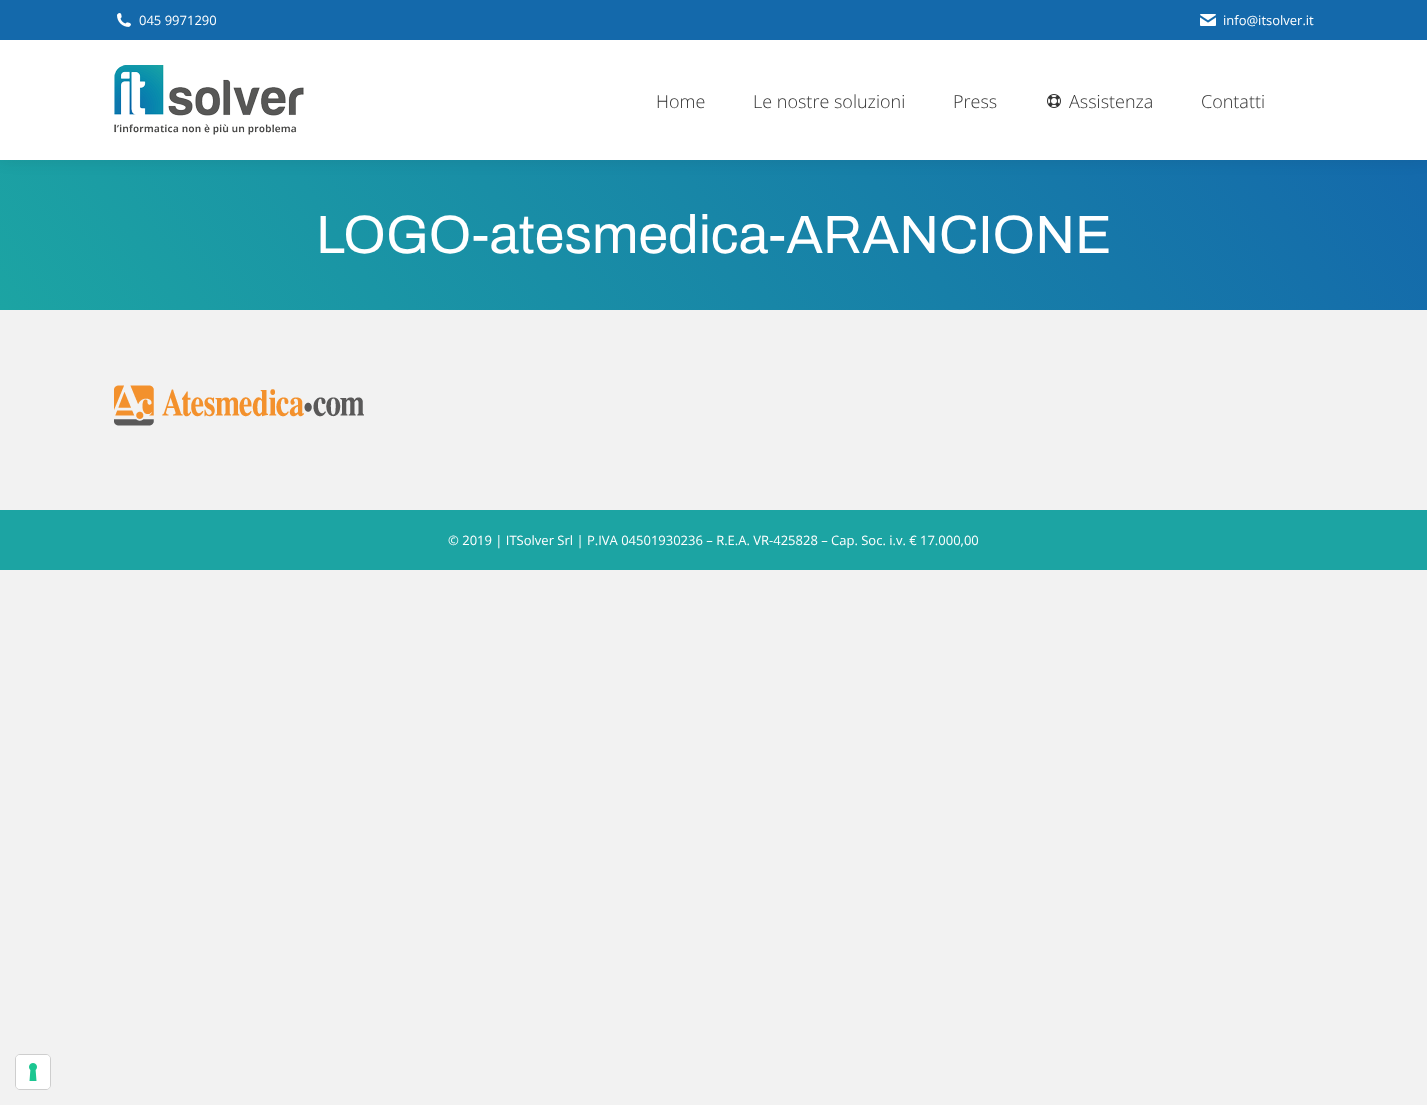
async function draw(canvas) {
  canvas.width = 1427;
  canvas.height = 1105;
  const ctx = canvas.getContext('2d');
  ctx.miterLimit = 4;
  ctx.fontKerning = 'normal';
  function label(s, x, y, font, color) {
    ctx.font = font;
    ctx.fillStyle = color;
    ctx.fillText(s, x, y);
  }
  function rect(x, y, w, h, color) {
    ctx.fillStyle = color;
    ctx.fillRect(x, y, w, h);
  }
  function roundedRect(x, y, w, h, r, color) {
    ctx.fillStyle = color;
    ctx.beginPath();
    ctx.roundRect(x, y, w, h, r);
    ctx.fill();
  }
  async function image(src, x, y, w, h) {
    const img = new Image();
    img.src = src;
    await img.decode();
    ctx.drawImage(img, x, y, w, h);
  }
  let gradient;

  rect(0, 0, 1427, 1105, '#f2f2f2');
  gradient = ctx.createLinearGradient(1239, -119, 188, 589);
  gradient.addColorStop(0, '#1469ab');
  gradient.addColorStop(1, '#1ca4a3');
  ctx.fillStyle = gradient;
  ctx.fillRect(0, 160, 1427, 150);
  ctx.fillStyle = '#00000012';
  ctx.filter = 'blur(7.5px)';
  ctx.beginPath();
  ctx.rect(-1, -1, 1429, 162);
  ctx.fill();
  ctx.filter = 'none';
  rect(0, 40, 1427, 120, '#fff');
  rect(0, 0, 1427, 40, '#1469ab');
  await image('assets/img1.png', 117, 13, 14, 14);
  label('045 9971290', 139, 25, '13px Open Sans', '#fff');
  await image('assets/img2.png', 1200, 14, 16, 12);
  label('info@itsolver.it', 1223, 25, '13px Open Sans', '#fff');
  await image('assets/img3.png', 114, 65, 190, 70);
  label('Home', 656, 108, '300 18px Open Sans', '#333');
  label('Le nostre soluzioni', 753, 108, '300 18px Open Sans', '#333');
  label('Press', 953, 108, '300 18px Open Sans', '#333');
  await image('assets/img4.png', 1047, 94, 14, 14);
  label('Assistenza', 1069, 108, '300 18px Open Sans', '#333');
  label('Contatti', 1201, 108, '300 18px Open Sans', '#333');
  label('LOGO-atesmedica-ARANCIONE', 316, 253, '54px Archivo', '#fff');
  await image('assets/img5.png', 114, 385, 250, 41);
  rect(0, 510, 1427, 60, '#1ca4a3');
  label('© 2019 | ITSolver Srl | P.IVA 04501930236 – R.E.A. VR-425828 – Cap. Soc. i.v. € 17.000,00', 448, 545, '13px Open Sans', '#fff');
  ctx.beginPath();
  ctx.roundRect(15.5, 1054.5, 35, 35, 4.5);
  ctx.strokeStyle = '#cecece';
  ctx.stroke();
  roundedRect(16, 1055, 34, 34, 4, '#fff');
  await image('assets/img6.png', 29, 1063, 8, 18);
}

draw(document.querySelector('canvas'));
